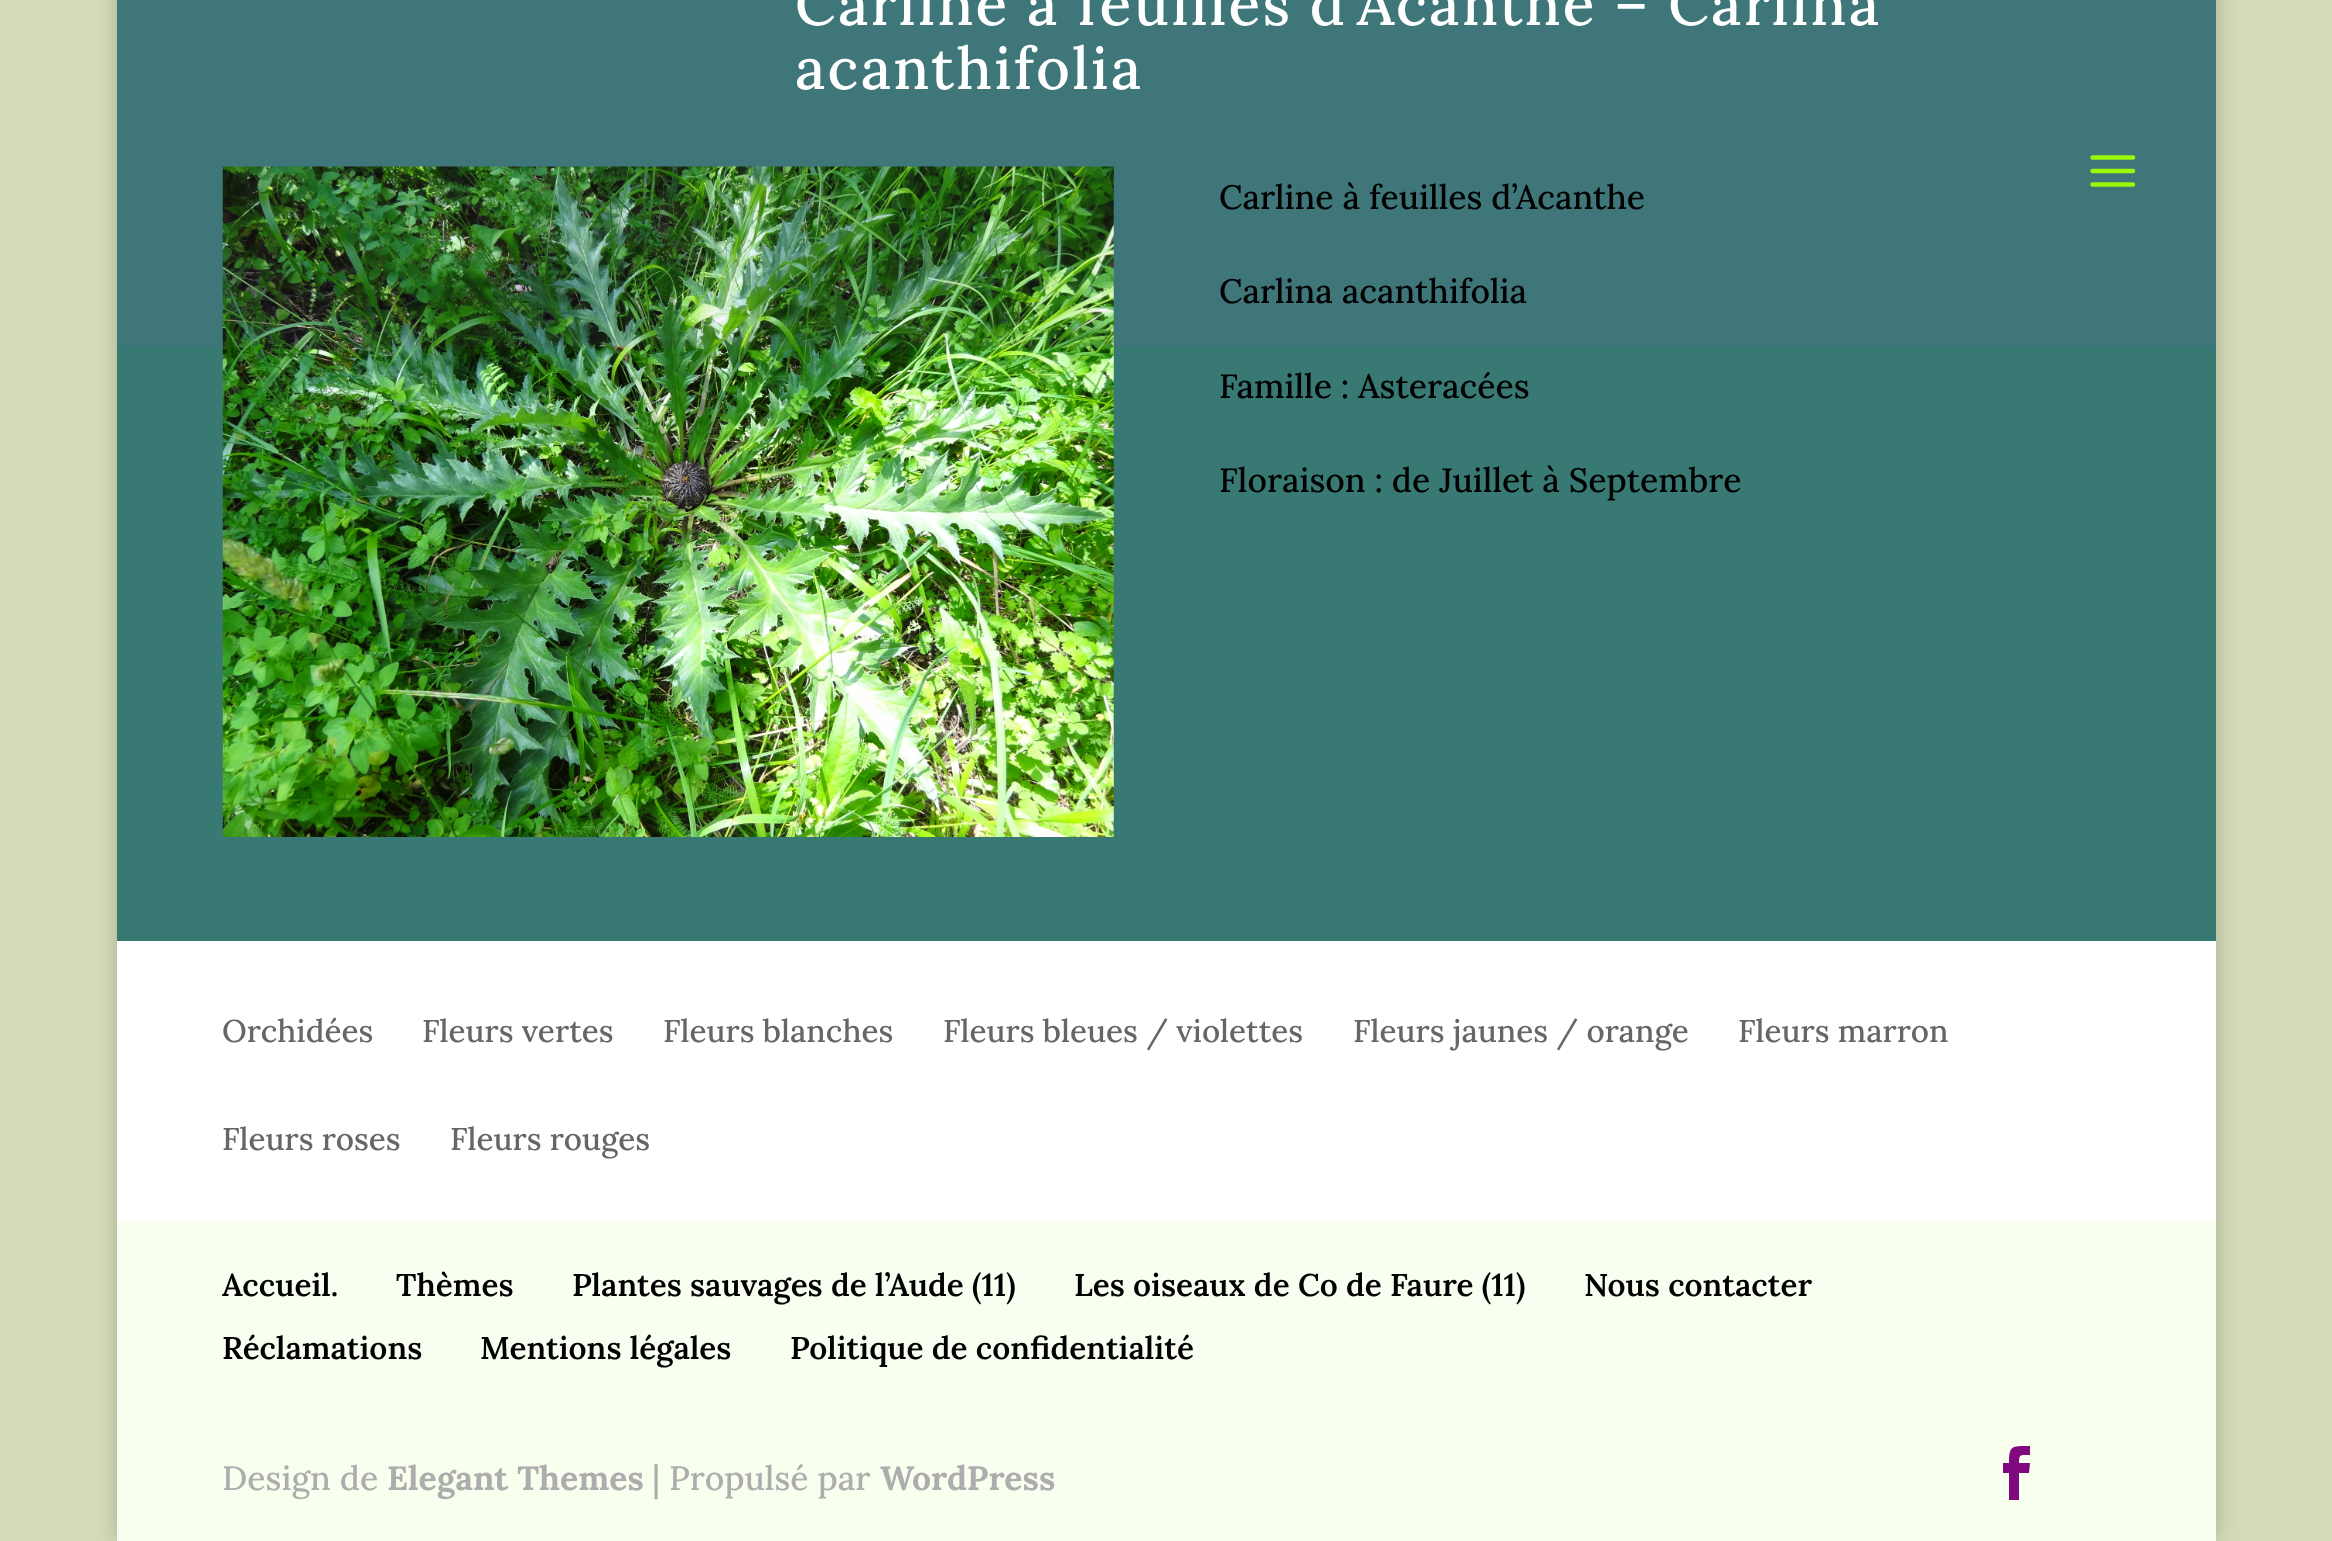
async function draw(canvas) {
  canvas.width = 2332;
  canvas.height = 1541;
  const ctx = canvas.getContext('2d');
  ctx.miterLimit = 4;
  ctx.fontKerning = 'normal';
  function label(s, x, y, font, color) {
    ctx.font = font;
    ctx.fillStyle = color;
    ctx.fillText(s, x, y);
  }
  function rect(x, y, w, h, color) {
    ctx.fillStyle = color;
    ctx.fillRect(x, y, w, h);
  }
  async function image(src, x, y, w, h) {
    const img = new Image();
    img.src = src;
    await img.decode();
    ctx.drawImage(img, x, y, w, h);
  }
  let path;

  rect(0, 0, 2332, 1541, '#d3dbb8');
  ctx.fillStyle = '#00000033';
  ctx.filter = 'blur(11px)';
  ctx.beginPath();
  ctx.rect(117, -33, 2099, 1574);
  ctx.fill();
  ctx.filter = 'none';
  rect(117, 0, 2099, 941, '#387a73');
  await image('assets/img2.png', 222, 166, 892, 671);
  rect(117, 0, 2099, 347, '#ae3de20d');
  await image('assets/img1.png', 2090, 155, 46, 32);
  rect(117, 941, 2099, 279, '#fff');
  ctx.letterSpacing = '2.25px';
  label('Carline à feuilles d’Acanthe – Carlina', 795, 25, '500 58.5px Lora', '#fff');
  label('acanthifolia', 795, 89, '500 58.5px Lora', '#fff');
  ctx.letterSpacing = '0px';
  label('Carline à feuilles d’Acanthe', 1219, 209, '500 33.75px Lora', '#000');
  label('Carlina acanthifolia', 1219, 303, '500 33.75px Lora', '#000');
  label('Famille : Asteracées', 1219, 398, '500 33.75px Lora', '#000');
  label('Floraison : de Juillet à Septembre', 1219, 492, '500 33.75px Lora', '#000');
  label('Orchidées', 222, 1042, '500 31.5px Lora', '#666');
  label('Fleurs vertes', 422, 1042, '500 31.5px Lora', '#666');
  label('Fleurs blanches', 663, 1042, '500 31.5px Lora', '#666');
  label('Fleurs bleues / violettes', 943, 1042, '500 31.5px Lora', '#666');
  label('Fleurs jaunes / orange', 1353, 1042, '500 31.5px Lora', '#666');
  label('Fleurs marron', 1738, 1042, '500 31.5px Lora', '#666');
  label('Fleurs roses', 222, 1150, '500 31.5px Lora', '#666');
  label('Fleurs rouges', 450, 1150, '500 31.5px Lora', '#666');
  rect(117, 1413, 2099, 128, '#f8ffef');
  rect(117, 1220, 2099, 193, '#f8fff1');
  label('Accueil.', 222, 1296, '600 31.5px Lora', '#000');
  label('Thèmes', 396, 1296, '600 31.5px Lora', '#000');
  label('Plantes sauvages de l’Aude (11)', 572, 1296, '600 31.5px Lora', '#000');
  label('Les oiseaux de Co de Faure (11)', 1074, 1296, '600 31.5px Lora', '#000');
  label('Nous contacter', 1584, 1296, '600 31.5px Lora', '#000');
  label('Réclamations', 222, 1359, '600 31.5px Lora', '#000');
  label('Mentions légales', 480, 1359, '600 31.5px Lora', '#000');
  label('Politique de confidentialité', 790, 1359, '600 31.5px Lora', '#000');
  label('Design de', 222, 1490, '500 33.75px Lora', '#adadad');
  label('Elegant Themes', 387, 1490, 'bold 33.75px Lora', '#adadad');
  label('| Propulsé par', 652, 1490, '500 33.75px Lora', '#adadad');
  label('WordPress', 880, 1490, 'bold 33.75px Lora', '#adadad');
  ctx.fillStyle = '#80097f';
  path = new Path2D('M2009 1500H2019V1473H2029L2030 1463H2019C2019 1454 2020 1455 2030 1455V1446C2012 1446 2009 1445 2009 1463H2003V1473H2009Z');
  ctx.fill(path);
}

draw(document.querySelector('canvas'));
